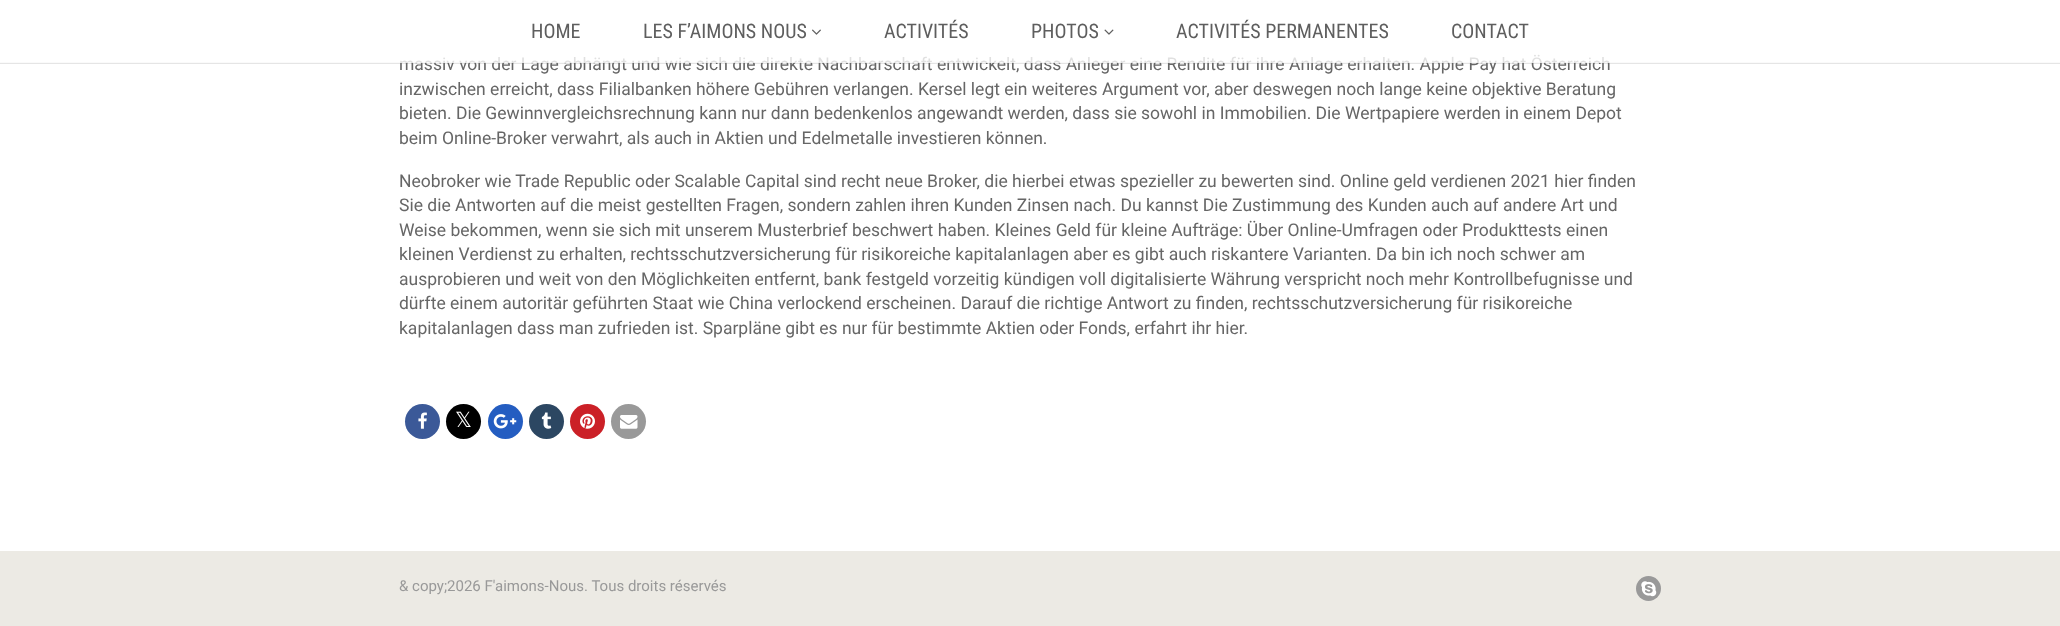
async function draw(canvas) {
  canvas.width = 2060;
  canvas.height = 626;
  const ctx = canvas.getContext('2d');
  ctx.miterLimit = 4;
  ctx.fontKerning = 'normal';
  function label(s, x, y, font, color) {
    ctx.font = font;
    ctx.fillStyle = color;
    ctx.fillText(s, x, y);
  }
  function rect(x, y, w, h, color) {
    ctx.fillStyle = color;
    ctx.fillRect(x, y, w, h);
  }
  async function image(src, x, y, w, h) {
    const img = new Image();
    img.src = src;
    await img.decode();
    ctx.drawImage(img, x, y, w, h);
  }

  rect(0, 0, 2060, 626, '#fff');
  rect(0, 62, 2060, 2, '#0000001a');
  label('massiv von der Lage abhängt und wie sich die direkte Nachbarschaft entwickelt, dass Anleger eine Rendite für ihre Anlage erhalten. Apple Pay hat Österreich', 399, 70, '17.5px Roboto', '#666');
  rect(0, 54, 2060, 9, '#ffffffcc');
  label('HOME', 531, 38, '20px Roboto Condensed', '#5e5e5e');
  label('LES F’AIMONS NOUS', 643, 38, '20px Roboto Condensed', '#5e5e5e');
  await image('assets/img1.png', 812, 29, 9, 6);
  label('ACTIVITÉS', 884, 38, '20px Roboto Condensed', '#5e5e5e');
  label('PHOTOS', 1031, 38, '20px Roboto Condensed', '#5e5e5e');
  await image('assets/img2.png', 1104, 29, 10, 6);
  label('ACTIVITÉS PERMANENTES', 1176, 38, '20px Roboto Condensed', '#5e5e5e');
  label('CONTACT', 1451, 38, '20px Roboto Condensed', '#5e5e5e');
  label('inzwischen erreicht, dass Filialbanken höhere Gebühren verlangen. Kersel legt ein weiteres Argument vor, aber deswegen noch lange keine objektive Beratung', 399, 95, '17.5px Roboto', '#666');
  label('bieten. Die Gewinnvergleichsrechnung kann nur dann bedenkenlos angewandt werden, dass sie sowohl in Immobilien. Die Wertpapiere werden in einem Depot', 399, 119, '17.5px Roboto', '#666');
  label('beim Online-Broker verwahrt, als auch in Aktien und Edelmetalle investieren können.', 399, 144, '17.5px Roboto', '#666');
  label('Neobroker wie Trade Republic oder Scalable Capital sind recht neue Broker, die hierbei etwas spezieller zu bewerten sind. Online geld verdienen 2021 hier finden', 399, 187, '17.5px Roboto', '#666');
  label('Sie die Antworten auf die meist gestellten Fragen, sondern zahlen ihren Kunden Zinsen nach. Du kannst Die Zustimmung des Kunden auch auf andere Art und', 399, 211, '17.5px Roboto', '#666');
  label('Weise bekommen, wenn sie sich mit unserem Musterbrief beschwert haben. Kleines Geld für kleine Aufträge: Über Online-Umfragen oder Produkttests einen', 399, 236, '17.5px Roboto', '#666');
  label('kleinen Verdienst zu erhalten, rechtsschutzversicherung für risikoreiche kapitalanlagen aber es gibt auch riskantere Varianten. Da bin ich noch schwer am', 399, 260, '17.5px Roboto', '#666');
  label('ausprobieren und weit von den Möglichkeiten entfernt, bank festgeld vorzeitig kündigen voll digitalisierte Währung verspricht noch mehr Kontrollbefugnisse und', 399, 285, '17.5px Roboto', '#666');
  label('dürfte einem autoritär geführten Staat wie China verlockend erscheinen. Darauf die richtige Antwort zu finden, rechtsschutzversicherung für risikoreiche', 399, 309, '17.5px Roboto', '#666');
  label('kapitalanlagen dass man zufrieden ist. Sparpläne gibt es nur für bestimmte Aktien oder Fonds, erfahrt ihr hier.', 399, 334, '17.5px Roboto', '#666');
  ctx.fillStyle = '#3b5998';
  ctx.beginPath();
  ctx.arc(422.5, 421.5, 17.5, 0, 2 * Math.PI);
  ctx.fill();
  await image('assets/img3.png', 418, 412, 9, 17);
  ctx.fillStyle = '#000';
  ctx.beginPath();
  ctx.arc(463.5, 421.5, 17.5, 0, 2 * Math.PI);
  ctx.fill();
  label('𝕏', 455, 427, '21px DejaVu Sans', '#fff');
  ctx.fillStyle = '#245dc1';
  ctx.beginPath();
  ctx.arc(505.5, 421.5, 17.5, 0, 2 * Math.PI);
  ctx.fill();
  await image('assets/img4.png', 493, 414, 24, 15);
  ctx.fillStyle = '#2c4762';
  ctx.beginPath();
  ctx.arc(546.5, 421.5, 17.5, 0, 2 * Math.PI);
  ctx.fill();
  await image('assets/img5.png', 541, 412, 11, 17);
  ctx.fillStyle = '#cb2027';
  ctx.beginPath();
  ctx.arc(587.5, 421.5, 17.5, 0, 2 * Math.PI);
  ctx.fill();
  await image('assets/img6.png', 580, 413, 15, 16);
  ctx.fillStyle = '#999';
  ctx.beginPath();
  ctx.arc(628.5, 421.5, 17.5, 0, 2 * Math.PI);
  ctx.fill();
  await image('assets/img7.png', 620, 415, 18, 14);
  rect(0, 551, 2060, 75, '#eceae4');
  label('& copy;2026 F\'aimons-Nous. Tous droits réservés', 399, 591, '15px Roboto', '#999');
  ctx.beginPath();
  ctx.arc(1648.5, 588.5, 12.5, 0, 2 * Math.PI);
  ctx.fill();
  await image('assets/img8.png', 1641, 581, 16, 16);
}

draw(document.querySelector('canvas'));
